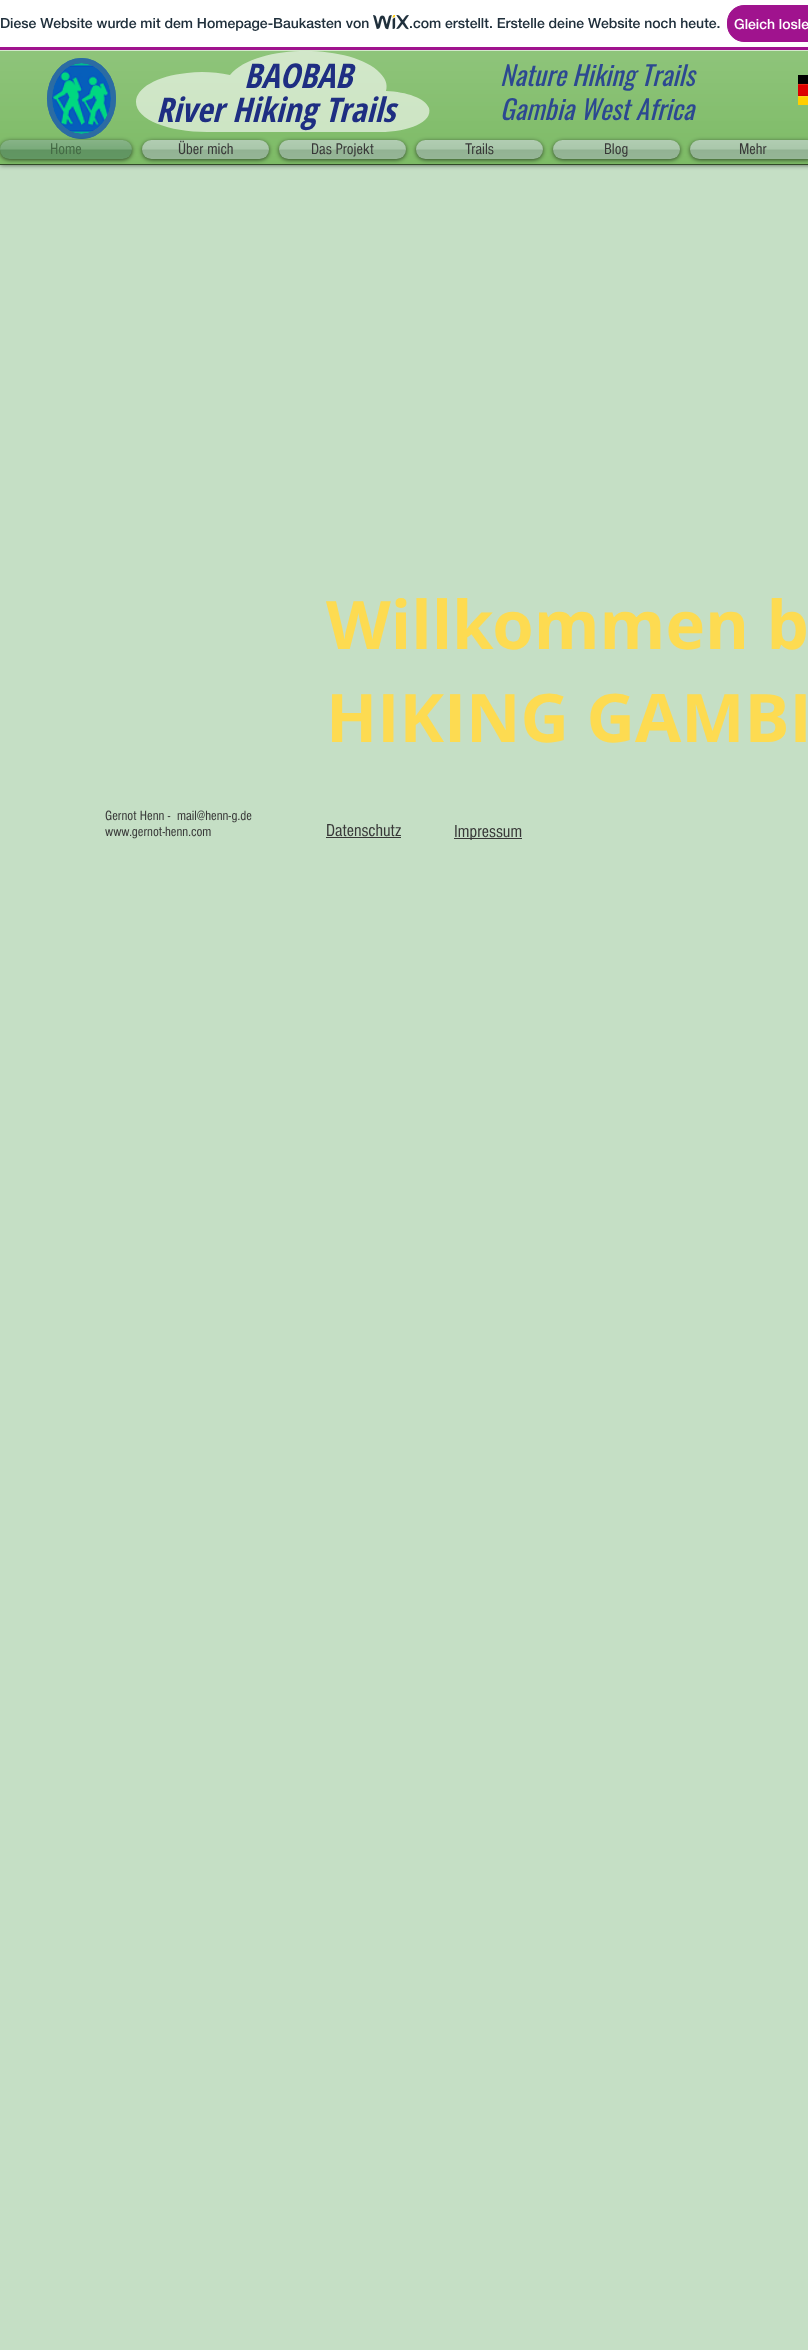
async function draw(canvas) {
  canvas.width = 808;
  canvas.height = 2350;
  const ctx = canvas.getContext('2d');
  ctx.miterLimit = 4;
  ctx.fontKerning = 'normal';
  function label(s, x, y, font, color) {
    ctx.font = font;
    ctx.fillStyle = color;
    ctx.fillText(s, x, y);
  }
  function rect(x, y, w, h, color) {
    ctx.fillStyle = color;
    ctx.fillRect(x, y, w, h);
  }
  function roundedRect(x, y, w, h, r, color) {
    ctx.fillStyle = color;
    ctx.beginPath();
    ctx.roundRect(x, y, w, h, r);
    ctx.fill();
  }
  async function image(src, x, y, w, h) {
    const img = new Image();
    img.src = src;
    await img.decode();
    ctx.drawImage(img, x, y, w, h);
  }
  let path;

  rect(0, 0, 808, 2350, '#c5dfc5');
  ctx.fillStyle = '#00000099';
  ctx.filter = 'blur(2.5px)';
  ctx.beginPath();
  ctx.rect(0, 50, 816, 115);
  ctx.fill();
  ctx.filter = 'none';
  rect(0, 0, 808, 47, '#fff');
  rect(0, 47, 808, 3, '#a0138e');
  label('Diese Website wurde mit dem Homepage-Baukasten von', 0, 28, '500 14px "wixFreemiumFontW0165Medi"', '#20303c');
  await image('assets/img1.png', 373, 15, 36, 15);
  label('.com erstellt. Erstelle deine Website noch heute.', 409, 28, '500 14px "wixFreemiumFontW0165Medi"', '#20303c');
  ctx.fillStyle = '#a0138e';
  ctx.beginPath();
  ctx.roundRect(727.5, 5.5, 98, 36, 16.5);
  ctx.fill();
  ctx.strokeStyle = '#a0138e';
  ctx.stroke();
  label('Gleich losle', 734, 29, '500 14px "wixFreemiumFontW0165Medi"', '#fff');
  rect(0, 51, 808, 113, '#68b04d');
  await image('assets/img2.png', 0, 51, 808, 113);
  rect(0, 164, 808, 1, '#324b29');
  rect(0, 50, 808, 1, '#d2e8ca');
  ctx.fillStyle = '#2b6ca3';
  ctx.beginPath();
  ctx.ellipse(81.5, 98.5, 34.5, 40.5, 0, 0, 2 * Math.PI);
  ctx.fill();
  path = new Path2D('M81.5 60.5C99 60.5 113.5 77.5 113.5 98.5C113.5 119.5 99 136.5 81.5 136.5C64 136.5 49.5 119.5 49.5 98.5C49.5 77.5 64 60.5 81.5 60.5Z');
  ctx.strokeStyle = '#2b6ca3';
  ctx.lineWidth = 5;
  ctx.stroke(path);
  await image('assets/img3.png', 52, 63, 59, 71);
  ctx.fillStyle = '#ffffff99';
  path = new Path2D('M429 108C425 98 407 92 386 91C388 84 385 78 380 73C353 44 257 43 230 75C216 72 201 71 187 73C157 76 136 88 136 102C136 120 169 132 207 132H380C409 132 433 122 429 108Z');
  ctx.fill(path);
  label('BAOBAB', 244, 88, 'italic bold 34px Open Sans Condensed', '#1e2e82');
  label('River Hiking Trails', 156, 122, 'italic bold 34px Open Sans Condensed', '#1e2e82');
  label('Nature Hiking Trails', 500, 86, 'italic 27px Oswald', '#2c4891');
  label('Gambia West Africa', 500, 120, 'italic 27px Oswald', '#2c4891');
  await image('assets/img4.png', 798, 75, 10, 30);
  ctx.fillStyle = '#00000099';
  ctx.filter = 'blur(2px)';
  ctx.beginPath();
  ctx.roundRect(0, 141, 132, 19, 9.5);
  ctx.fill();
  ctx.filter = 'none';
  roundedRect(0, 140, 132, 19, 9.5, '#68a069');
  await image('assets/img5.png', 0, 140, 132, 19);
  label('Home', 50, 154, '16px "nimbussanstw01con"', '#456b46');
  ctx.fillStyle = '#00000099';
  ctx.filter = 'blur(2px)';
  ctx.beginPath();
  ctx.roundRect(142, 141, 127, 19, 9.5);
  ctx.fill();
  ctx.filter = 'none';
  roundedRect(142, 140, 127, 19, 9.5, '#9ec09f');
  await image('assets/img6.png', 142, 140, 127, 19);
  label('Über mich', 178, 154, '16px "nimbussanstw01con"', '#383838');
  ctx.fillStyle = '#00000099';
  ctx.filter = 'blur(2px)';
  ctx.beginPath();
  ctx.roundRect(279, 141, 127, 19, 9.5);
  ctx.fill();
  ctx.filter = 'none';
  roundedRect(279, 140, 127, 19, 9.5, '#9ec09f');
  await image('assets/img7.png', 279, 140, 127, 19);
  label('Das Projekt', 311, 154, '16px "nimbussanstw01con"', '#383838');
  ctx.fillStyle = '#00000099';
  ctx.filter = 'blur(2px)';
  ctx.beginPath();
  ctx.roundRect(416, 141, 127, 19, 9.5);
  ctx.fill();
  ctx.filter = 'none';
  roundedRect(416, 140, 127, 19, 9.5, '#9ec09f');
  await image('assets/img8.png', 416, 140, 127, 19);
  label('Trails', 465, 154, '16px "nimbussanstw01con"', '#383838');
  ctx.fillStyle = '#00000099';
  ctx.filter = 'blur(2px)';
  ctx.beginPath();
  ctx.roundRect(553, 141, 127, 19, 9.5);
  ctx.fill();
  ctx.filter = 'none';
  roundedRect(553, 140, 127, 19, 9.5, '#9ec09f');
  await image('assets/img6.png', 553, 140, 127, 19);
  label('Blog', 604, 154, '16px "nimbussanstw01con"', '#383838');
  ctx.fillStyle = '#00000099';
  ctx.filter = 'blur(2px)';
  ctx.beginPath();
  ctx.roundRect(690, 141, 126, 19, 9.5);
  ctx.fill();
  ctx.filter = 'none';
  roundedRect(690, 140, 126, 19, 9.5, '#9ec09f');
  await image('assets/img9.png', 690, 140, 118, 19);
  label('Mehr', 739, 154, '16px "nimbussanstw01con"', '#383838');
  label('Willkommen b', 326, 649, 'bold 67px Open Sans', '#fddb51');
  label('HIKING GAMBI', 326, 742, 'bold 67px Open Sans', '#fddb51');
  label('Gernot Henn -', 105, 820, '14px "nimbussanstw01con"', '#383838');
  label('mail@henn-g.de', 177, 820, '14px "nimbussanstw01con"', '#383838');
  label('www.gernot-henn.com', 105, 836, '14px "nimbussanstw01con"', '#383838');
  label('Datenschutz', 326, 836, '18px "nimbussanstw01con"', '#383838');
  rect(326, 837, 75, 1, '#383838');
  rect(454, 838, 68, 1, '#383838');
  label('Impressum', 454, 837, '18px "nimbussanstw01con"', '#383838');
}

draw(document.querySelector('canvas'));
